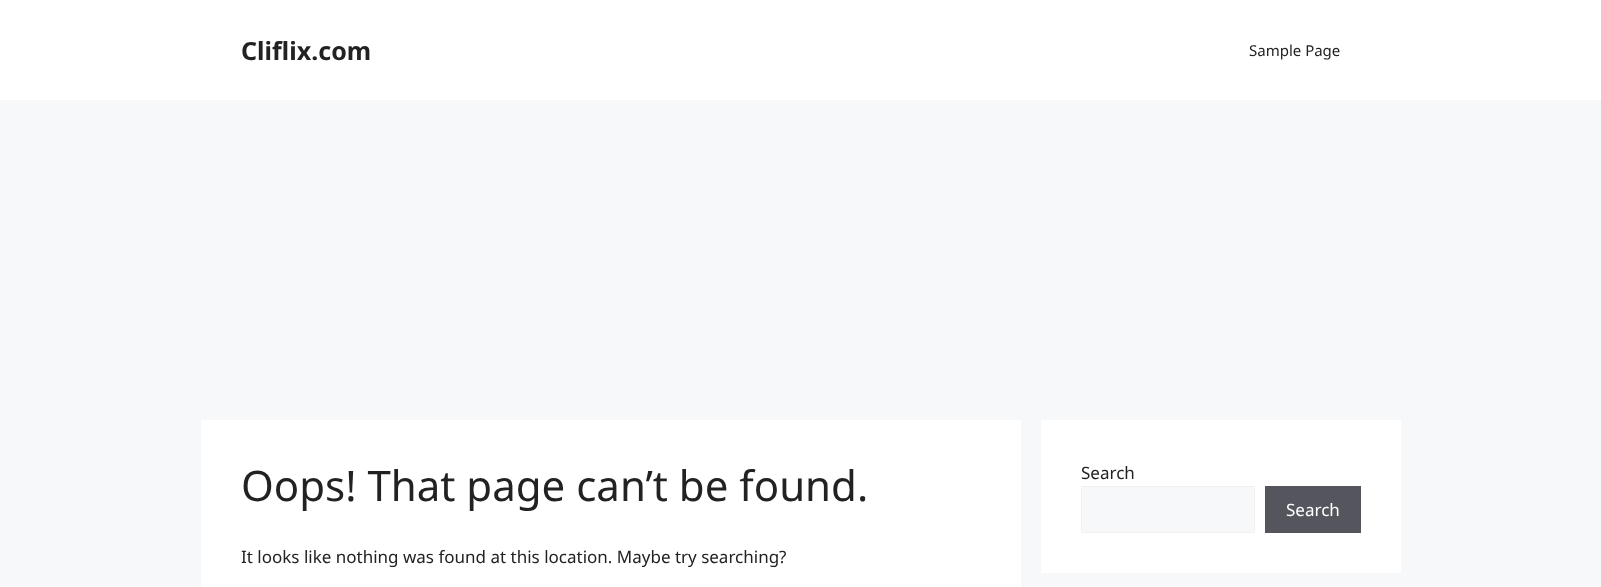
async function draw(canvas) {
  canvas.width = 1601;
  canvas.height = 587;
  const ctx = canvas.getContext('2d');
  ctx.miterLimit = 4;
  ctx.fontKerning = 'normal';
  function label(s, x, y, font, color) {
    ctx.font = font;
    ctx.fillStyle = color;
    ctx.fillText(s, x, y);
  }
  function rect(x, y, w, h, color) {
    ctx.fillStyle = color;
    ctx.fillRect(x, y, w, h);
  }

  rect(0, 0, 1601, 587, '#f7f8f9');
  rect(0, 0, 1601, 100, '#fff');
  label('Cliflix.com', 241, 60, 'bold 25px Noto Sans', '#222');
  label('Sample Page', 1249, 56, '15px Noto Sans', '#222');
  rect(201, 420, 820, 167, '#fff');
  label('Oops! That page can’t be found.', 241, 501, '42px Noto Sans', '#222');
  label('It looks like nothing was found at this location. Maybe try searching?', 241, 563, '17px Noto Sans', '#222');
  rect(1041, 420, 360, 153, '#fff');
  label('Search', 1081, 479, '17px Noto Sans', '#222');
  ctx.fillStyle = '#f7f8f9';
  ctx.beginPath();
  ctx.rect(1081.5, 486.5, 173, 46);
  ctx.fill();
  ctx.strokeStyle = '#f0f0f0';
  ctx.stroke();
  rect(1265, 486, 96, 47, '#55555e');
  label('Search', 1286, 516, '17px Noto Sans', '#fff');
}

draw(document.querySelector('canvas'));
